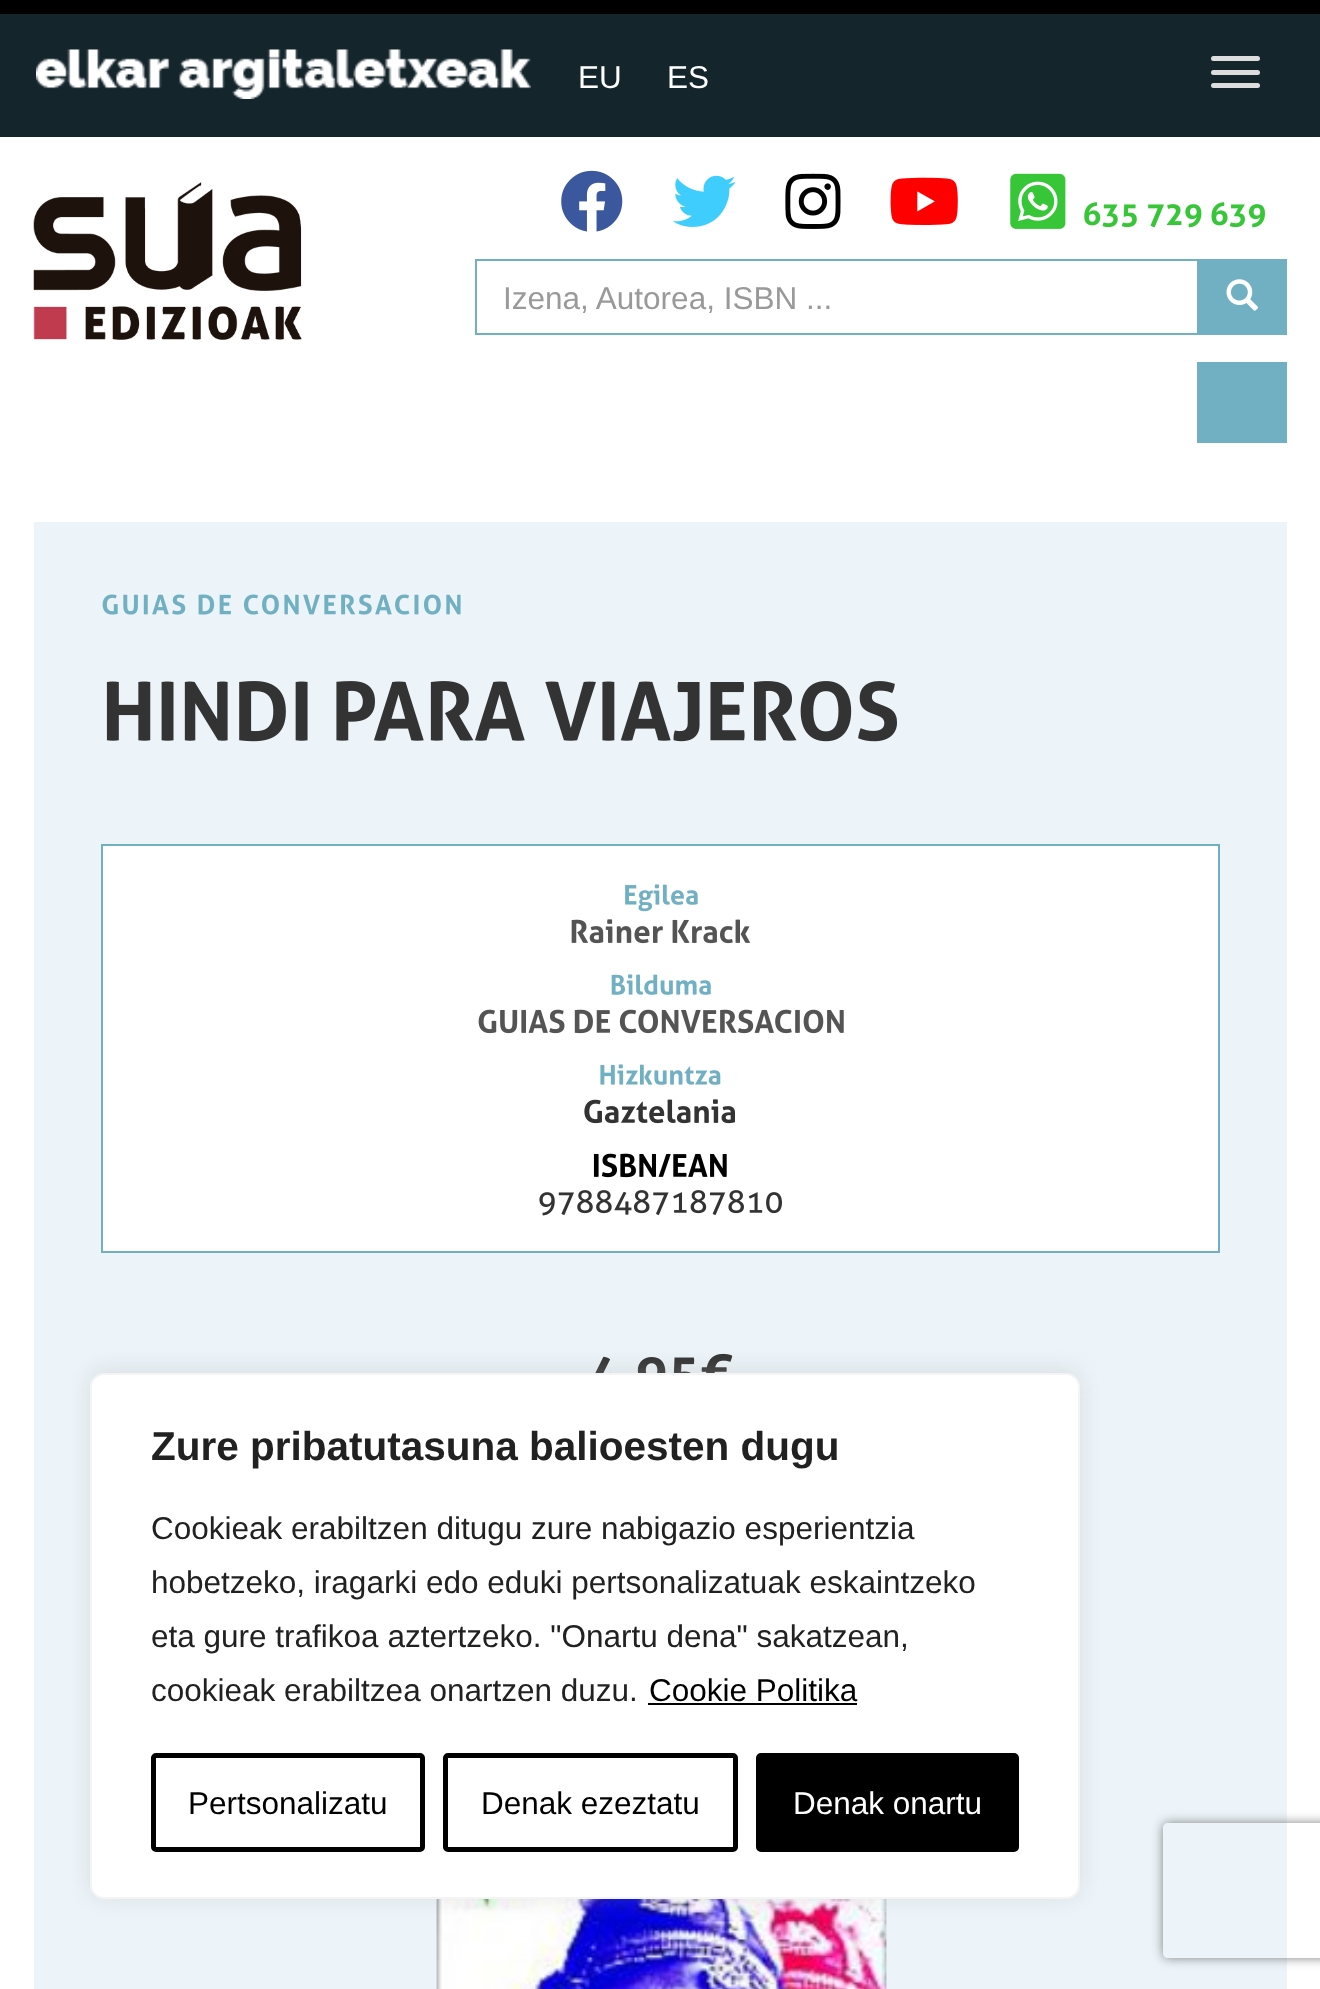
async function draw(canvas) {
  canvas.width = 1320;
  canvas.height = 1989;
  const ctx = canvas.getContext('2d');
  ctx.miterLimit = 4;
  ctx.fontKerning = 'normal';
  function label(s, x, y, font, color) {
    ctx.font = font;
    ctx.fillStyle = color;
    ctx.fillText(s, x, y);
  }
  function rect(x, y, w, h, color) {
    ctx.fillStyle = color;
    ctx.fillRect(x, y, w, h);
  }
  function roundedRect(x, y, w, h, r, color) {
    ctx.fillStyle = color;
    ctx.beginPath();
    ctx.roundRect(x, y, w, h, r);
    ctx.fill();
  }
  async function image(src, x, y, w, h) {
    const img = new Image();
    img.src = src;
    await img.decode();
    ctx.drawImage(img, x, y, w, h);
  }
  let path;

  rect(0, 0, 1320, 1989, '#fff');
  rect(0, 14, 1320, 123, '#14252c');
  rect(0, 0, 1320, 14, '#000');
  await image('assets/img1.png', 36, 49, 495, 50);
  label('EU', 578, 88, '31.5px Liberation Sans', '#fff');
  label('ES', 667, 88, '31.5px Liberation Sans', '#fff');
  roundedRect(1211, 56, 49, 5, 2.5, '#ddd');
  roundedRect(1211, 70, 49, 5, 2.5, '#ddd');
  roundedRect(1211, 83, 49, 5, 2.5, '#ddd');
  await image('assets/img2.png', 33, 182, 269, 158);
  await image('assets/img3.png', 561, 170, 62, 62);
  await image('assets/img4.png', 673, 175, 63, 52);
  await image('assets/img5.png', 785, 173, 56, 56);
  await image('assets/img6.png', 890, 177, 68, 48);
  await image('assets/img7.png', 1010, 173, 56, 56);
  await image('assets/img8.png', 1084, 202, 181, 26);
  ctx.strokeStyle = '#71b0c3';
  ctx.lineWidth = 2;
  ctx.strokeRect(476, 260, 722, 74);
  label('Izena, Autorea, ISBN ...', 503, 309, '31.5px Liberation Sans', '#999');
  rect(1199, 259, 88, 76, '#71b0c3');
  await image('assets/img9.png', 1226, 279, 32, 32);
  rect(1197, 362, 90, 81, '#71b0c3');
  rect(34, 522, 1253, 1467, '#ecf4f9');
  await image('assets/img10.png', 102, 594, 359, 21);
  await image('assets/img11.png', 106, 681, 202, 61);
  await image('assets/img12.png', 336, 681, 189, 60);
  await image('assets/img13.png', 545, 681, 352, 61);
  ctx.fillStyle = '#fff';
  ctx.beginPath();
  ctx.rect(102, 845, 1117, 407);
  ctx.fill();
  ctx.stroke();
  await image('assets/img14.png', 625, 884, 73, 28);
  await image('assets/img15.png', 571, 919, 180, 25);
  await image('assets/img16.png', 611, 974, 100, 21);
  await image('assets/img17.png', 478, 1009, 366, 25);
  await image('assets/img18.png', 600, 1064, 121, 21);
  await image('assets/img19.png', 584, 1099, 151, 25);
  await image('assets/img20.png', 593, 1153, 134, 25);
  await image('assets/img21.png', 539, 1190, 243, 26);
  await image('assets/img22.png', 595, 1353, 138, 20);
  await image('assets/img23.png', 436, 1899, 451, 90);
  ctx.fillStyle = '#acabab4d';
  ctx.filter = 'blur(11px)';
  ctx.beginPath();
  ctx.roundRect(90, 1370, 990, 527, 14);
  ctx.fill();
  ctx.filter = 'none';
  ctx.fillStyle = '#fff';
  ctx.beginPath();
  ctx.roundRect(91, 1374, 988, 524, 13);
  ctx.fill();
  ctx.strokeStyle = '#f4f4f4';
  ctx.stroke();
  label('Zure pribatutasuna balioesten dugu', 151, 1460, 'bold 40.5px Liberation Sans', '#212121');
  label('Cookieak erabiltzen ditugu zure nabigazio esperientzia', 151, 1539, '31.5px Liberation Sans', '#212121');
  label('hobetzeko, iragarki edo eduki pertsonalizatuak eskaintzeko', 151, 1593, '31.5px Liberation Sans', '#212121');
  label('eta gure trafikoa aztertzeko. "Onartu dena" sakatzean,', 151, 1647, '31.5px Liberation Sans', '#212121');
  label('cookieak erabiltzea onartzen duzu.', 151, 1701, '31.5px Liberation Sans', '#212121');
  label('Cookie Politika', 649, 1701, '31.5px Liberation Sans', '#000');
  rect(648, 1703, 209, 2, '#000');
  ctx.beginPath();
  ctx.roundRect(153.5, 1755.5, 269, 94, 2.5);
  ctx.strokeStyle = '#000';
  ctx.lineWidth = 5;
  ctx.stroke();
  label('Pertsonalizatu', 188, 1814, '31.5px Liberation Sans', '#000');
  ctx.beginPath();
  ctx.roundRect(445.5, 1755.5, 290, 94, 2.5);
  ctx.stroke();
  label('Denak ezeztatu', 481, 1814, '31.5px Liberation Sans', '#000');
  ctx.beginPath();
  ctx.roundRect(758.5, 1755.5, 258, 94, 2.5);
  ctx.fill();
  ctx.stroke();
  label('Denak onartu', 793, 1814, '31.5px Liberation Sans', '#fff');
  ctx.save();
  path = new Path2D('M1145 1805H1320V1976H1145ZM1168 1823H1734C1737 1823 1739 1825 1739 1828V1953C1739 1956 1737 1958 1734 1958H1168C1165 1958 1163 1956 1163 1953V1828C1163 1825 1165 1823 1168 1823Z');
  ctx.clip(path, 'evenodd');
  ctx.fillStyle = '#808080';
  ctx.filter = 'blur(5.5px)';
  ctx.beginPath();
  ctx.roundRect(1163, 1823, 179, 135, 5);
  ctx.fill();
  ctx.filter = 'none';
  ctx.restore();
}

draw(document.querySelector('canvas'));
